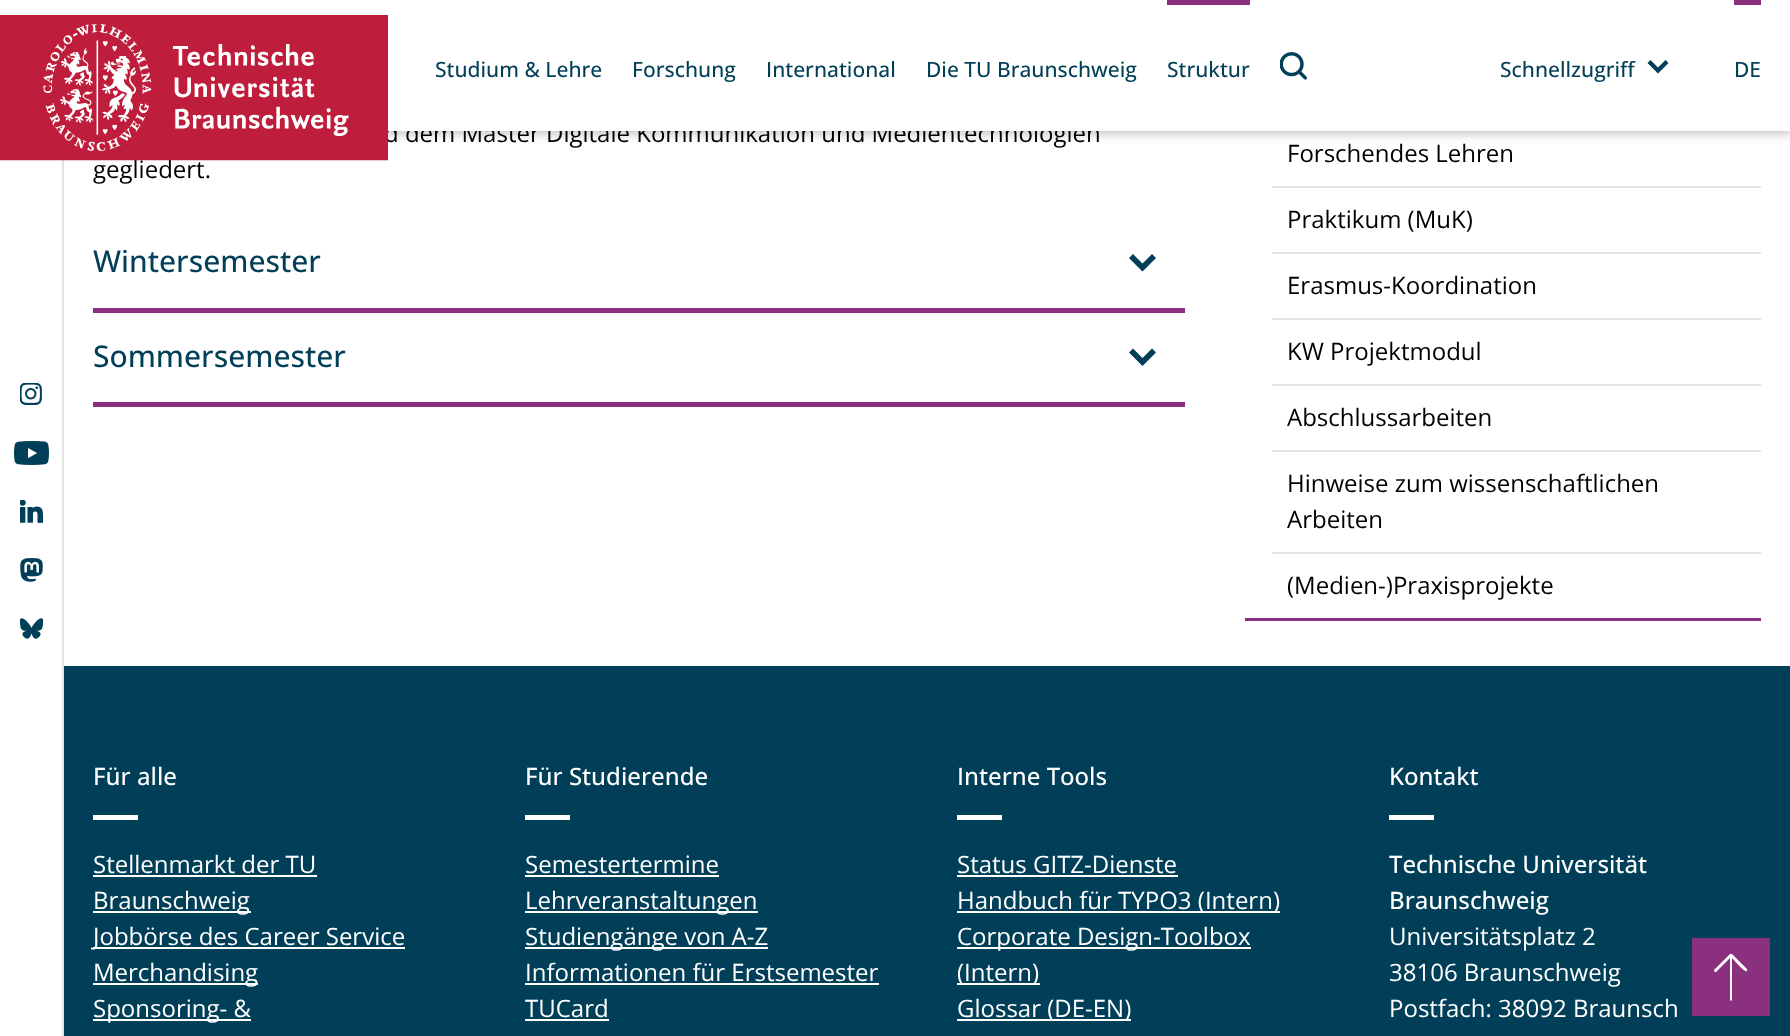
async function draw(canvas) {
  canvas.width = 1790;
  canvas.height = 1036;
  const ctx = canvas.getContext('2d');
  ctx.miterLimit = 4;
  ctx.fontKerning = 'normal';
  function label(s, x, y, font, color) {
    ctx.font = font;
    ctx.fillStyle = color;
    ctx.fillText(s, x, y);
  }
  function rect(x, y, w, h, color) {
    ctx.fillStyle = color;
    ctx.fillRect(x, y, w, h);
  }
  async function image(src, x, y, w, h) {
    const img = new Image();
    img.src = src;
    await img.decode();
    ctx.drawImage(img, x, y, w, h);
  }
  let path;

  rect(0, 0, 1790, 1036, '#fff');
  ctx.fillStyle = '#00000033';
  ctx.filter = 'blur(4.5px)';
  ctx.beginPath();
  ctx.rect(0, 5, 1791, 130);
  ctx.fill();
  ctx.filter = 'none';
  label('d dem Master Digitale Kommunikation und Medientechnologien', 384, 142, '24px Open Sans', '#000');
  rect(0, 0, 1790, 131, '#fff');
  rect(62, 160, 2, 876, '#e2e2e2');
  label('gegliedert.', 93, 178, '24px Open Sans', '#000');
  await image('assets/img1.png', 0, 15, 388, 146);
  label('Studium & Lehre', 435, 77, '500 21px Open Sans', '#003f57');
  label('Forschung', 632, 77, '500 21px Open Sans', '#003f57');
  label('International', 766, 77, '500 21px Open Sans', '#003f57');
  label('Die TU Braunschweig', 926, 77, '500 21px Open Sans', '#003f57');
  rect(1167, 0, 83, 5, '#8a307f');
  label('Struktur', 1167, 77, '500 21px Open Sans', '#003f57');
  await image('assets/img2.png', 1280, 52, 27, 28);
  label('Schnellzugriff', 1500, 77, '500 21px Open Sans', '#003f57');
  path = new Path2D('M1658 73.5L1647.5 63L1650.5 60L1658 67.5L1665.5 60L1668.5 63Z');
  ctx.fill(path);
  rect(1734, 0, 27, 5, '#8a307f');
  label('DE', 1734, 77, '500 21px Open Sans', '#003f57');
  await image('assets/img3.png', 20, 383, 22, 22);
  await image('assets/img4.png', 14, 441, 35, 24);
  await image('assets/img5.png', 20, 500, 24, 23);
  await image('assets/img6.png', 20, 558, 23, 24);
  await image('assets/img7.png', 20, 618, 24, 21);
  rect(93, 308, 1092, 5, '#8a307f');
  label('Wintersemester', 93, 272, '500 30px Open Sans', '#003f57');
  path = new Path2D('M1142.5 271.5L1129 258L1133 254L1142.5 263.5L1152 254L1156 258Z');
  ctx.fill(path);
  rect(93, 402, 1092, 5, '#8a307f');
  label('Sommersemester', 93, 367, '500 30px Open Sans', '#003f57');
  path = new Path2D('M1142.5 366L1129 352.5L1133 348.5L1142.5 358L1152 348.5L1156 352.5Z');
  ctx.fill(path);
  rect(1245, 618, 516, 3, '#8a307f');
  rect(1272, 186, 489, 2, '#e2e2e2');
  label('Forschendes Lehren', 1287, 162, '24px Open Sans', '#000');
  rect(1272, 252, 489, 2, '#e2e2e2');
  label('Praktikum (MuK)', 1287, 228, '24px Open Sans', '#000');
  rect(1272, 318, 489, 2, '#e2e2e2');
  label('Erasmus-Koordination', 1287, 294, '24px Open Sans', '#000');
  rect(1272, 384, 489, 2, '#e2e2e2');
  label('KW Projektmodul', 1287, 360, '24px Open Sans', '#000');
  rect(1272, 450, 489, 2, '#e2e2e2');
  label('Abschlussarbeiten', 1287, 426, '24px Open Sans', '#000');
  rect(1272, 552, 489, 2, '#e2e2e2');
  label('Hinweise zum wissenschaftlichen', 1287, 492, '24px Open Sans', '#000');
  label('Arbeiten', 1287, 528, '24px Open Sans', '#000');
  label('(Medien-)Praxisprojekte', 1287, 594, '24px Open Sans', '#000');
  rect(64, 666, 1726, 370, '#003f57');
  label('Für alle', 93, 785, '500 24px Open Sans', '#fff');
  rect(93, 815, 45, 5, '#fff');
  label('Stellenmarkt der TU', 93, 873, '24px Open Sans', '#fff');
  rect(93, 875, 224, 2, '#fff');
  rect(93, 911, 158, 2, '#fff');
  label('Braunschweig', 93, 909, '24px Open Sans', '#fff');
  rect(93, 947, 312, 2, '#fff');
  label('Jobbörse des Career Service', 93, 945, '24px Open Sans', '#fff');
  rect(93, 983, 165, 2, '#fff');
  label('Merchandising', 93, 981, '24px Open Sans', '#fff');
  rect(93, 1019, 158, 2, '#fff');
  label('Sponsoring- &', 93, 1017, '24px Open Sans', '#fff');
  label('Für Studierende', 525, 785, '500 24px Open Sans', '#fff');
  rect(525, 815, 45, 5, '#fff');
  label('Semestertermine', 525, 873, '24px Open Sans', '#fff');
  rect(525, 875, 194, 2, '#fff');
  rect(525, 911, 233, 2, '#fff');
  label('Lehrveranstaltungen', 525, 909, '24px Open Sans', '#fff');
  rect(525, 947, 243, 2, '#fff');
  label('Studiengänge von A-Z', 525, 945, '24px Open Sans', '#fff');
  label('Informationen für Erstsemester', 525, 981, '24px Open Sans', '#fff');
  rect(525, 983, 354, 2, '#fff');
  label('TUCard', 525, 1017, '24px Open Sans', '#fff');
  rect(525, 1019, 84, 2, '#fff');
  label('Interne Tools', 957, 785, '500 24px Open Sans', '#fff');
  rect(957, 815, 45, 5, '#fff');
  label('Status GITZ-Dienste', 957, 873, '24px Open Sans', '#fff');
  rect(957, 875, 221, 2, '#fff');
  rect(957, 911, 323, 2, '#fff');
  label('Handbuch für TYPO3 (Intern)', 957, 909, '24px Open Sans', '#fff');
  rect(957, 947, 294, 2, '#fff');
  label('Corporate Design-Toolbox', 957, 945, '24px Open Sans', '#fff');
  rect(957, 983, 83, 2, '#fff');
  label('(Intern)', 957, 981, '24px Open Sans', '#fff');
  rect(957, 1019, 174, 2, '#fff');
  label('Glossar (DE-EN)', 957, 1017, '24px Open Sans', '#fff');
  label('Kontakt', 1389, 785, '500 24px Open Sans', '#fff');
  rect(1389, 815, 45, 5, '#fff');
  label('Technische Universität', 1389, 873, '500 24px Open Sans', '#fff');
  label('Braunschweig', 1389, 909, '500 24px Open Sans', '#fff');
  label('Universitätsplatz 2', 1389, 945, '24px Open Sans', '#fff');
  label('38106 Braunschweig', 1389, 981, '24px Open Sans', '#fff');
  label('Postfach: 38092 Braunsch', 1389, 1017, '24px Open Sans', '#fff');
  ctx.fillStyle = '#8a307f';
  ctx.beginPath();
  ctx.rect(1693, 939, 76, 76);
  ctx.fill();
  ctx.strokeStyle = '#8a307f';
  ctx.lineWidth = 2;
  ctx.stroke();
  ctx.fillStyle = '#fff';
  path = new Path2D('M1732 954H1730L1714 970C1714 971 1715 973 1716 972L1730 958V1000L1731 1001L1732 1000V958C1734 960 1745 973 1747 971V969Z');
  ctx.fill(path);
}

draw(document.querySelector('canvas'));
